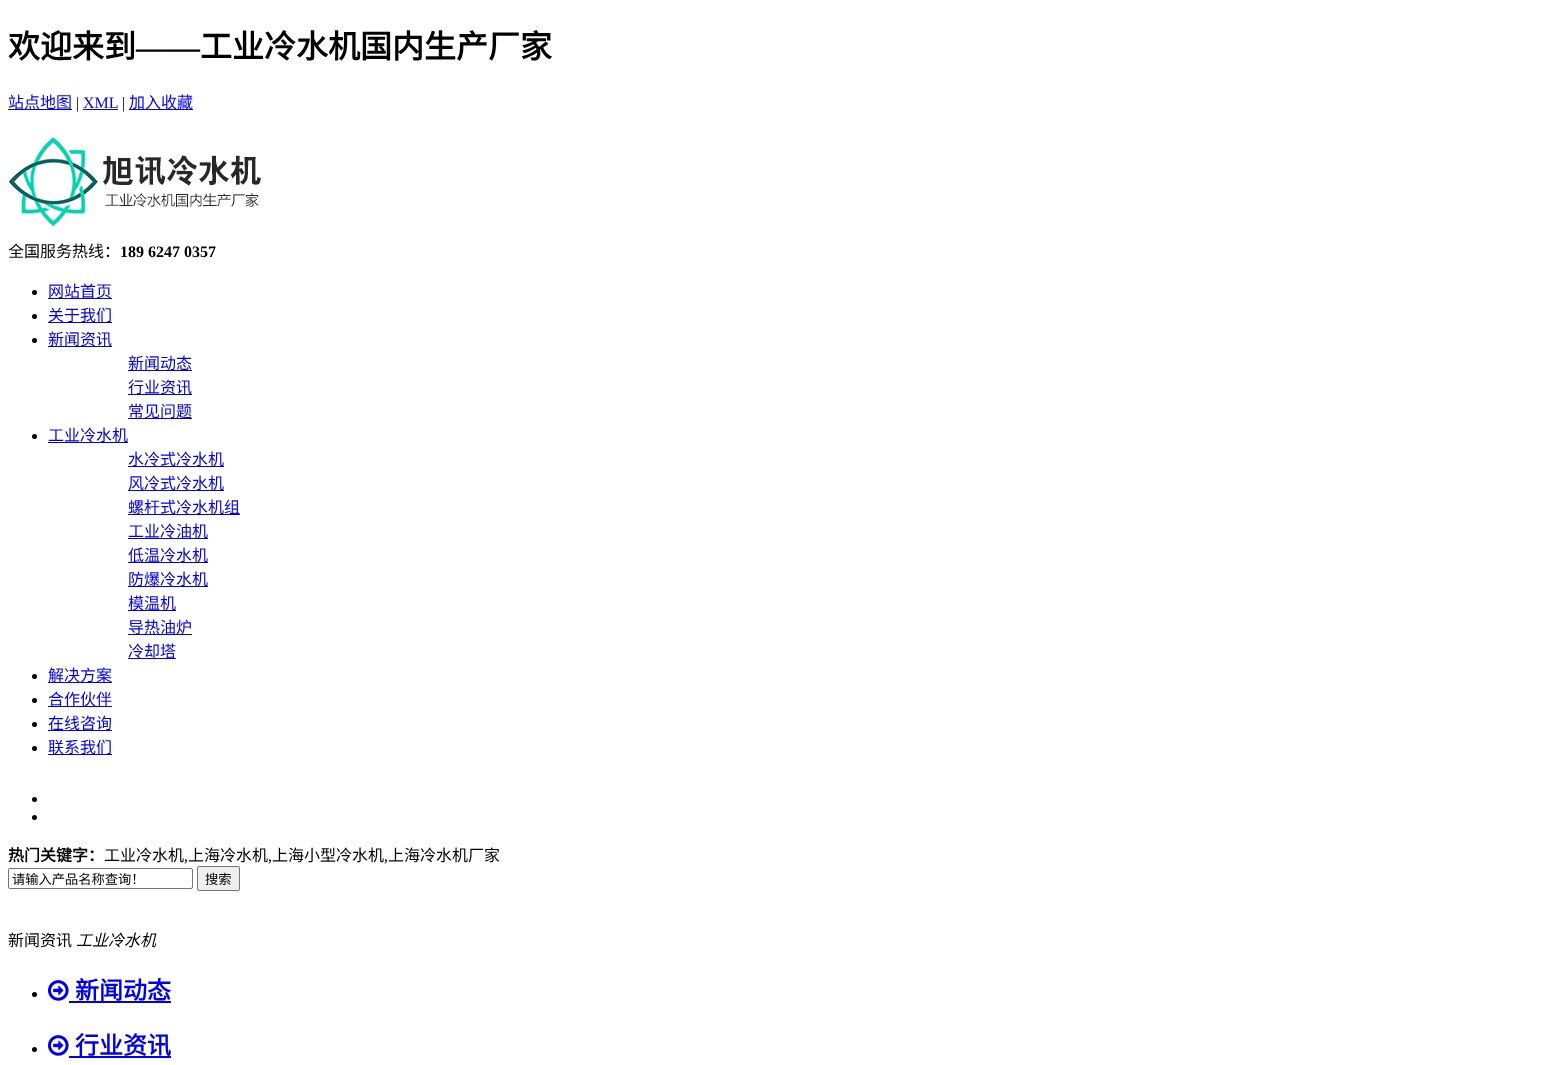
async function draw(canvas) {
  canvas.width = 1565;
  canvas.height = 1065;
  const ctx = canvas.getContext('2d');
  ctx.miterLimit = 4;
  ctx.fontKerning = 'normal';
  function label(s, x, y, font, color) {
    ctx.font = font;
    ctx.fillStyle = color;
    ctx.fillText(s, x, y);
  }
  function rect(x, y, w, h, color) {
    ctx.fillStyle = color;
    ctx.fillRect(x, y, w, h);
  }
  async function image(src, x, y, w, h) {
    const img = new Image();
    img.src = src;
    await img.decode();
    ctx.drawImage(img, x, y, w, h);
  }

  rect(0, 0, 1565, 1065, '#fff');
  label('欢迎来到', 8, 58, 'bold 32px Noto Sans CJK SC', '#000');
  label('——', 136, 58, 'bold 32px Liberation Serif', '#000');
  label('工业冷水机国内生产厂家', 200, 58, 'bold 32px Noto Sans CJK SC', '#000');
  rect(8, 109, 64, 1, '#00e');
  label('站点地图', 8, 108, '16px Noto Sans CJK SC', '#00e');
  label('|', 76, 108, '16px Liberation Serif', '#000');
  label('XML', 83, 108, '16px Liberation Serif', '#00e');
  rect(83, 109, 35, 1, '#00e');
  label('|', 122, 108, '16px Liberation Serif', '#000');
  rect(129, 109, 64, 1, '#00e');
  label('加入收藏', 129, 108, '16px Noto Sans CJK SC', '#00e');
  await image('assets/img1.png', 8, 137, 253, 91);
  label('全国服务热线：', 8, 257, '16px Noto Sans CJK SC', '#000');
  label('189 6247 0357', 120, 257, 'bold 16px Liberation Serif', '#000');
  ctx.beginPath();
  ctx.arc(34.5, 292.5, 2.5, 0, 2 * Math.PI);
  ctx.fill();
  rect(48, 298, 64, 1, '#00e');
  label('网站首页', 48, 297, '16px Noto Sans CJK SC', '#00e');
  ctx.fillStyle = '#000';
  ctx.beginPath();
  ctx.arc(34.5, 316.5, 2.5, 0, 2 * Math.PI);
  ctx.fill();
  rect(48, 322, 64, 1, '#00e');
  label('关于我们', 48, 321, '16px Noto Sans CJK SC', '#00e');
  ctx.fillStyle = '#000';
  ctx.beginPath();
  ctx.arc(34.5, 340.5, 2.5, 0, 2 * Math.PI);
  ctx.fill();
  rect(48, 346, 64, 1, '#00e');
  label('新闻资讯', 48, 345, '16px Noto Sans CJK SC', '#00e');
  rect(128, 370, 64, 1, '#00e');
  label('新闻动态', 128, 369, '16px Noto Sans CJK SC', '#00e');
  rect(128, 394, 64, 1, '#00e');
  label('行业资讯', 128, 393, '16px Noto Sans CJK SC', '#00e');
  rect(128, 418, 64, 1, '#00e');
  label('常见问题', 128, 417, '16px Noto Sans CJK SC', '#00e');
  ctx.fillStyle = '#000';
  ctx.beginPath();
  ctx.arc(34.5, 436.5, 2.5, 0, 2 * Math.PI);
  ctx.fill();
  rect(48, 442, 80, 1, '#00e');
  label('工业冷水机', 48, 441, '16px Noto Sans CJK SC', '#00e');
  rect(128, 466, 96, 1, '#00e');
  label('水冷式冷水机', 128, 465, '16px Noto Sans CJK SC', '#00e');
  rect(128, 490, 96, 1, '#00e');
  label('风冷式冷水机', 128, 489, '16px Noto Sans CJK SC', '#00e');
  rect(128, 514, 112, 1, '#00e');
  label('螺杆式冷水机组', 128, 513, '16px Noto Sans CJK SC', '#00e');
  rect(128, 538, 80, 1, '#00e');
  label('工业冷油机', 128, 537, '16px Noto Sans CJK SC', '#00e');
  rect(128, 562, 80, 1, '#00e');
  label('低温冷水机', 128, 561, '16px Noto Sans CJK SC', '#00e');
  rect(128, 586, 80, 1, '#00e');
  label('防爆冷水机', 128, 585, '16px Noto Sans CJK SC', '#00e');
  rect(128, 610, 48, 1, '#00e');
  label('模温机', 128, 609, '16px Noto Sans CJK SC', '#00e');
  rect(128, 634, 64, 1, '#00e');
  label('导热油炉', 128, 633, '16px Noto Sans CJK SC', '#00e');
  rect(128, 658, 48, 1, '#00e');
  label('冷却塔', 128, 657, '16px Noto Sans CJK SC', '#00e');
  ctx.fillStyle = '#000';
  ctx.beginPath();
  ctx.arc(34.5, 676.5, 2.5, 0, 2 * Math.PI);
  ctx.fill();
  rect(48, 682, 64, 1, '#00e');
  label('解决方案', 48, 681, '16px Noto Sans CJK SC', '#00e');
  ctx.fillStyle = '#000';
  ctx.beginPath();
  ctx.arc(34.5, 700.5, 2.5, 0, 2 * Math.PI);
  ctx.fill();
  rect(48, 706, 64, 1, '#00e');
  label('合作伙伴', 48, 705, '16px Noto Sans CJK SC', '#00e');
  ctx.fillStyle = '#000';
  ctx.beginPath();
  ctx.arc(34.5, 724.5, 2.5, 0, 2 * Math.PI);
  ctx.fill();
  rect(48, 730, 64, 1, '#00e');
  label('在线咨询', 48, 729, '16px Noto Sans CJK SC', '#00e');
  ctx.fillStyle = '#000';
  ctx.beginPath();
  ctx.arc(34.5, 748.5, 2.5, 0, 2 * Math.PI);
  ctx.fill();
  rect(48, 754, 64, 1, '#00e');
  label('联系我们', 48, 753, '16px Noto Sans CJK SC', '#00e');
  ctx.fillStyle = '#000';
  ctx.beginPath();
  ctx.arc(34.5, 799.5, 2.5, 0, 2 * Math.PI);
  ctx.fill();
  ctx.beginPath();
  ctx.arc(34.5, 817.5, 2.5, 0, 2 * Math.PI);
  ctx.fill();
  label('热门关键字：', 8, 861, 'bold 16px Noto Sans CJK SC', '#000');
  label('工业冷水机', 104, 861, '16px Noto Sans CJK SC', '#000');
  label(',', 184, 861, '16px Liberation Serif', '#000');
  label('上海冷水机', 188, 861, '16px Noto Sans CJK SC', '#000');
  label(',', 268, 861, '16px Liberation Serif', '#000');
  label('上海小型冷水机', 272, 861, '16px Noto Sans CJK SC', '#000');
  label(',', 384, 861, '16px Liberation Serif', '#000');
  label('上海冷水机厂家', 388, 861, '16px Noto Sans CJK SC', '#000');
  ctx.beginPath();
  ctx.roundRect(8.5, 868.5, 184, 20, 1.5);
  ctx.strokeStyle = '#767676';
  ctx.stroke();
  label('请输入产品名称查询！', 12, 884, '13.25px Noto Sans CJK SC', '#000');
  ctx.fillStyle = '#efefef';
  ctx.beginPath();
  ctx.roundRect(197.5, 866.5, 42, 24, 1.5);
  ctx.fill();
  ctx.stroke();
  label('搜索', 205, 884, '13.25px Noto Sans CJK SC', '#000');
  label('新闻资讯', 8, 946, '16px Noto Sans CJK SC', '#000');
  label('工业冷水机', 76, 946, 'italic 16px Noto Sans CJK SC', '#000');
  ctx.beginPath();
  ctx.arc(34.5, 994.5, 2.5, 0, 2 * Math.PI);
  ctx.fill();
  await image('assets/img2.png', 48, 980, 21, 21);
  label('新闻动态', 75, 999, 'bold 24px Noto Sans CJK SC', '#00e');
  rect(69, 1001, 102, 2, '#00e');
  ctx.fillStyle = '#000';
  ctx.beginPath();
  ctx.arc(34.5, 1049.5, 2.5, 0, 2 * Math.PI);
  ctx.fill();
  await image('assets/img2.png', 48, 1035, 21, 21);
  label('行业资讯', 75, 1054, 'bold 24px Noto Sans CJK SC', '#00e');
  rect(69, 1056, 102, 2, '#00e');
}

draw(document.querySelector('canvas'));
